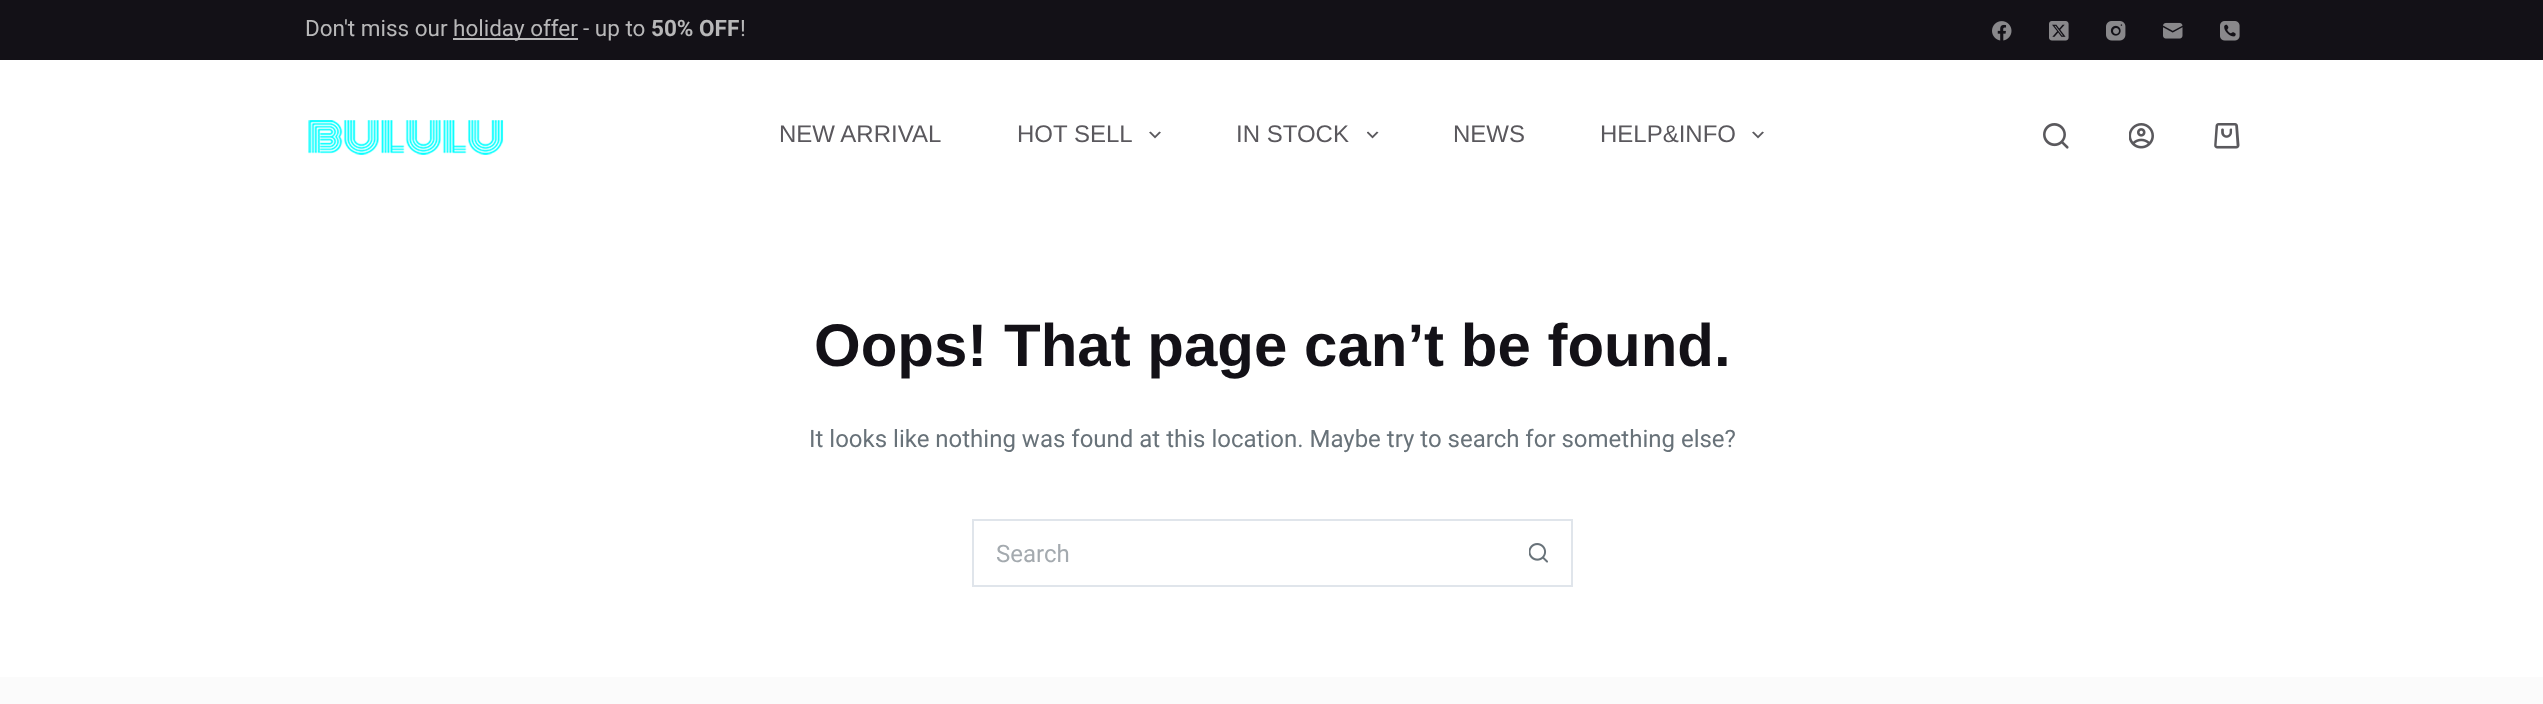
async function draw(canvas) {
  canvas.width = 2543;
  canvas.height = 704;
  const ctx = canvas.getContext('2d');
  ctx.miterLimit = 4;
  ctx.fontKerning = 'normal';
  function label(s, x, y, font, color) {
    ctx.font = font;
    ctx.fillStyle = color;
    ctx.fillText(s, x, y);
  }
  function rect(x, y, w, h, color) {
    ctx.fillStyle = color;
    ctx.fillRect(x, y, w, h);
  }
  async function image(src, x, y, w, h) {
    const img = new Image();
    img.src = src;
    await img.decode();
    ctx.drawImage(img, x, y, w, h);
  }

  rect(0, 0, 2543, 704, '#fff');
  rect(0, 0, 2543, 60, '#131117');
  label('Don\'t miss our', 305, 36, '22.5px Roboto', '#b8b8b9');
  rect(453, 38, 125, 2, '#b8b8b9');
  label('holiday offer', 453, 36, '22.5px Roboto', '#b8b8b9');
  label('- up to', 583, 36, '22.5px Roboto', '#b8b8b9');
  label('50% OFF', 651, 36, 'bold 22.5px Roboto', '#b8b8b9');
  label('!', 740, 36, '22.5px Roboto', '#b8b8b9');
  await image('assets/img1.png', 1992, 21, 20, 20);
  await image('assets/img2.png', 2049, 21, 20, 20);
  await image('assets/img3.png', 2106, 21, 20, 20);
  await image('assets/img4.png', 2163, 22, 20, 17);
  await image('assets/img5.png', 2220, 21, 20, 20);
  await image('assets/img6.png', 308, 120, 196, 35);
  label('NEW ARRIVAL', 779, 142, '24px Liberation Sans', '#5a585d');
  label('HOT SELL', 1017, 142, '24px Liberation Sans', '#5a585d');
  await image('assets/img7.png', 1149, 131, 12, 8);
  label('IN STOCK', 1236, 142, '24px Liberation Sans', '#5a585d');
  await image('assets/img8.png', 1367, 131, 12, 8);
  label('NEWS', 1453, 142, '24px Liberation Sans', '#5a585d');
  label('HELP&INFO', 1600, 142, '24px Liberation Sans', '#5a585d');
  await image('assets/img7.png', 1752, 131, 12, 8);
  await image('assets/img9.png', 2043, 123, 26, 26);
  await image('assets/img10.png', 2129, 123, 25, 26);
  await image('assets/img11.png', 2214, 123, 26, 26);
  label('Oops! That page can’t be found.', 814, 366, 'bold 60px Liberation Sans', '#131117');
  label('It looks like nothing was found at this location. Maybe try to search for something else?', 809, 447, '24px Roboto', '#687279');
  rect(972, 519, 600, 2, '#e0e5eb');
  rect(972, 585, 533, 2, '#e0e5eb');
  rect(972, 519, 2, 68, '#e0e5eb');
  label('Search', 996, 562, '24px Roboto', '#a4aaaf');
  rect(1571, 519, 2, 68, '#e0e5eb');
  rect(1505, 585, 67, 2, '#e0e5eb');
  await image('assets/img12.png', 1529, 543, 19, 20);
  rect(0, 677, 2543, 27, '#fbfbfb');
}

draw(document.querySelector('canvas'));
